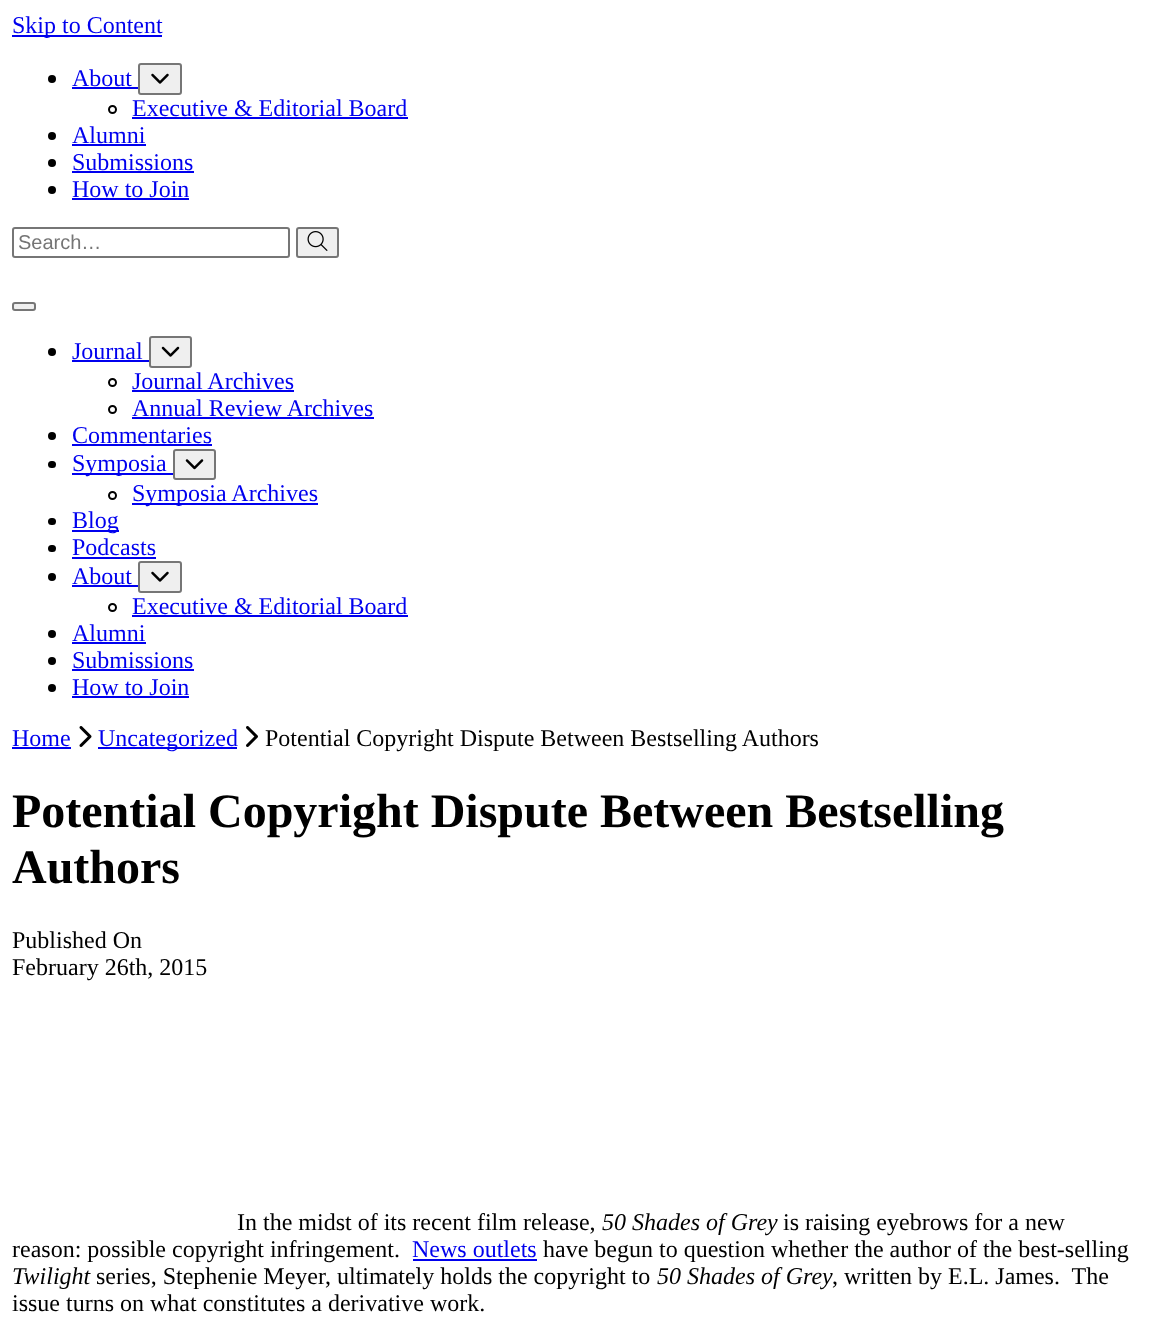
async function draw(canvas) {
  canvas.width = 1149;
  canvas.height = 1341;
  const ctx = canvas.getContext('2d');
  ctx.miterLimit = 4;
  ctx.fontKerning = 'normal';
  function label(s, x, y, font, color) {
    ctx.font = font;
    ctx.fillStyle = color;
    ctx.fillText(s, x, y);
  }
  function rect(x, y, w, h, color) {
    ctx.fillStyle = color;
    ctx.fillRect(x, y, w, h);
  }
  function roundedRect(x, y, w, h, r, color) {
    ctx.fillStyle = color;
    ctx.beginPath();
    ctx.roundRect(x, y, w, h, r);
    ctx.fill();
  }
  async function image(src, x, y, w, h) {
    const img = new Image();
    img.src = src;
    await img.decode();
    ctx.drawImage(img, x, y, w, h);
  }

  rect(0, 0, 1149, 1341, '#fff');
  rect(12, 35, 150, 2, '#00e');
  label('Skip to Content', 12, 33, '24px Liberation Serif', '#00e');
  ctx.fillStyle = '#000';
  ctx.beginPath();
  ctx.arc(52, 79, 4, 0, 2 * Math.PI);
  ctx.fill();
  label('About', 72, 86, '24px Liberation Serif', '#00e');
  rect(72, 87, 66, 2, '#00e');
  ctx.fillStyle = '#efefef';
  ctx.beginPath();
  ctx.roundRect(139, 64, 42, 30, 2);
  ctx.fill();
  ctx.strokeStyle = '#767676';
  ctx.lineWidth = 2;
  ctx.stroke();
  await image('assets/img1.png', 151, 73, 18, 11);
  ctx.beginPath();
  ctx.arc(112.5, 109.5, 3.5, 0, 2 * Math.PI);
  ctx.strokeStyle = '#000';
  ctx.stroke();
  label('Executive & Editorial Board', 132, 116, '24px Liberation Serif', '#00e');
  rect(132, 117, 276, 2, '#00e');
  ctx.fillStyle = '#000';
  ctx.beginPath();
  ctx.arc(52, 136, 4, 0, 2 * Math.PI);
  ctx.fill();
  label('Alumni', 72, 143, '24px Liberation Serif', '#00e');
  rect(72, 144, 74, 2, '#00e');
  ctx.fillStyle = '#000';
  ctx.beginPath();
  ctx.arc(52, 163, 4, 0, 2 * Math.PI);
  ctx.fill();
  label('Submissions', 72, 170, '24px Liberation Serif', '#00e');
  rect(72, 171, 122, 2, '#00e');
  ctx.fillStyle = '#000';
  ctx.beginPath();
  ctx.arc(52, 190, 4, 0, 2 * Math.PI);
  ctx.fill();
  label('How to Join', 72, 197, '24px Liberation Serif', '#00e');
  rect(72, 198, 117, 2, '#00e');
  ctx.beginPath();
  ctx.roundRect(13, 228, 276, 29, 2);
  ctx.strokeStyle = '#767676';
  ctx.stroke();
  label('Search…', 18, 249, '20px Liberation Sans', '#757575');
  ctx.fillStyle = '#efefef';
  ctx.beginPath();
  ctx.roundRect(297, 228, 41, 29, 2);
  ctx.fill();
  ctx.stroke();
  await image('assets/img2.png', 307, 231, 21, 20);
  ctx.beginPath();
  ctx.roundRect(13, 303, 22, 7, 2);
  ctx.fill();
  ctx.stroke();
  ctx.fillStyle = '#000';
  ctx.beginPath();
  ctx.arc(52, 352, 4, 0, 2 * Math.PI);
  ctx.fill();
  label('Journal', 72, 359, '24px Liberation Serif', '#00e');
  rect(72, 360, 77, 2, '#00e');
  ctx.fillStyle = '#efefef';
  ctx.beginPath();
  ctx.roundRect(150, 337, 41, 30, 2);
  ctx.fill();
  ctx.stroke();
  await image('assets/img3.png', 161, 346, 19, 11);
  ctx.beginPath();
  ctx.arc(112.5, 382.5, 3.5, 0, 2 * Math.PI);
  ctx.strokeStyle = '#000';
  ctx.stroke();
  label('Journal Archives', 132, 389, '24px Liberation Serif', '#00e');
  rect(132, 390, 162, 2, '#00e');
  ctx.beginPath();
  ctx.arc(112.5, 409.5, 3.5, 0, 2 * Math.PI);
  ctx.stroke();
  label('Annual Review Archives', 132, 416, '24px Liberation Serif', '#00e');
  rect(132, 417, 242, 2, '#00e');
  ctx.fillStyle = '#000';
  ctx.beginPath();
  ctx.arc(52, 436, 4, 0, 2 * Math.PI);
  ctx.fill();
  label('Commentaries', 72, 443, '24px Liberation Serif', '#00e');
  rect(72, 444, 140, 2, '#00e');
  roundedRect(48, 461, 8, 7, 3.5, '#000');
  rect(72, 473, 101, 2, '#00e');
  label('Symposia', 72, 471, '24px Liberation Serif', '#00e');
  ctx.fillStyle = '#efefef';
  ctx.beginPath();
  ctx.roundRect(174, 450, 41, 29, 2);
  ctx.fill();
  ctx.strokeStyle = '#767676';
  ctx.stroke();
  await image('assets/img4.png', 185, 459, 19, 11);
  ctx.beginPath();
  ctx.arc(112.5, 495.5, 3.5, 0, 2 * Math.PI);
  ctx.strokeStyle = '#000';
  ctx.stroke();
  rect(132, 503, 186, 2, '#00e');
  label('Symposia Archives', 132, 501, '24px Liberation Serif', '#00e');
  roundedRect(48, 518, 8, 7, 3.5, '#000');
  rect(72, 530, 47, 2, '#00e');
  label('Blog', 72, 528, '24px Liberation Serif', '#00e');
  roundedRect(48, 545, 8, 7, 3.5, '#000');
  label('Podcasts', 72, 555, '24px Liberation Serif', '#00e');
  rect(72, 557, 84, 2, '#00e');
  ctx.fillStyle = '#000';
  ctx.beginPath();
  ctx.arc(52, 577, 4, 0, 2 * Math.PI);
  ctx.fill();
  label('About', 72, 584, '24px Liberation Serif', '#00e');
  rect(72, 585, 66, 2, '#00e');
  ctx.fillStyle = '#efefef';
  ctx.beginPath();
  ctx.roundRect(139, 562, 42, 30, 2);
  ctx.fill();
  ctx.strokeStyle = '#767676';
  ctx.stroke();
  await image('assets/img1.png', 151, 571, 18, 11);
  ctx.beginPath();
  ctx.arc(112.5, 607.5, 3.5, 0, 2 * Math.PI);
  ctx.strokeStyle = '#000';
  ctx.stroke();
  label('Executive & Editorial Board', 132, 614, '24px Liberation Serif', '#00e');
  rect(132, 615, 276, 2, '#00e');
  ctx.fillStyle = '#000';
  ctx.beginPath();
  ctx.arc(52, 634, 4, 0, 2 * Math.PI);
  ctx.fill();
  label('Alumni', 72, 641, '24px Liberation Serif', '#00e');
  rect(72, 642, 74, 2, '#00e');
  ctx.fillStyle = '#000';
  ctx.beginPath();
  ctx.arc(52, 661, 4, 0, 2 * Math.PI);
  ctx.fill();
  label('Submissions', 72, 668, '24px Liberation Serif', '#00e');
  rect(72, 669, 122, 2, '#00e');
  ctx.fillStyle = '#000';
  ctx.beginPath();
  ctx.arc(52, 688, 4, 0, 2 * Math.PI);
  ctx.fill();
  label('How to Join', 72, 695, '24px Liberation Serif', '#00e');
  rect(72, 696, 117, 2, '#00e');
  label('Home', 12, 746, '24px Liberation Serif', '#00e');
  rect(12, 747, 59, 2, '#00e');
  await image('assets/img5.png', 79, 726, 13, 21);
  rect(98, 747, 139, 2, '#00e');
  label('Uncategorized', 98, 746, '24px Liberation Serif', '#00e');
  await image('assets/img6.png', 246, 726, 12, 21);
  label('Potential Copyright Dispute Between Bestselling Authors', 265, 746, '24px Liberation Serif', '#000');
  label('Potential Copyright Dispute Between Bestselling', 12, 827, 'bold 48px Liberation Serif', '#000');
  label('Authors', 12, 883, 'bold 48px Liberation Serif', '#000');
  label('Published On', 12, 948, '24px Liberation Serif', '#000');
  label('February 26th, 2015', 12, 975, '24px Liberation Serif', '#000');
  label('In the midst of its recent film release,', 237, 1230, '24px Liberation Serif', '#000');
  label('50 Shades of Grey', 602, 1230, 'italic 24px Liberation Serif', '#000');
  label('is raising eyebrows for a new', 783, 1230, '24px Liberation Serif', '#000');
  label('reason: possible copyright infringement.', 12, 1257, '24px Liberation Serif', '#000');
  label('News outlets', 412, 1257, '24px Liberation Serif', '#00e');
  rect(413, 1259, 124, 2, '#00e');
  label('have begun to question whether the author of the best-selling', 543, 1257, '24px Liberation Serif', '#000');
  label('Twilight', 12, 1284, 'italic 24px Liberation Serif', '#000');
  label('series, Stephenie Meyer, ultimately holds the copyright to', 96, 1284, '24px Liberation Serif', '#000');
  label('50 Shades of Grey', 657, 1284, 'italic 24px Liberation Serif', '#000');
  label(', written by E.L. James.  The', 832, 1284, '24px Liberation Serif', '#000');
  label('issue turns on what constitutes a derivative work.', 12, 1311, '24px Liberation Serif', '#000');
}

draw(document.querySelector('canvas'));
